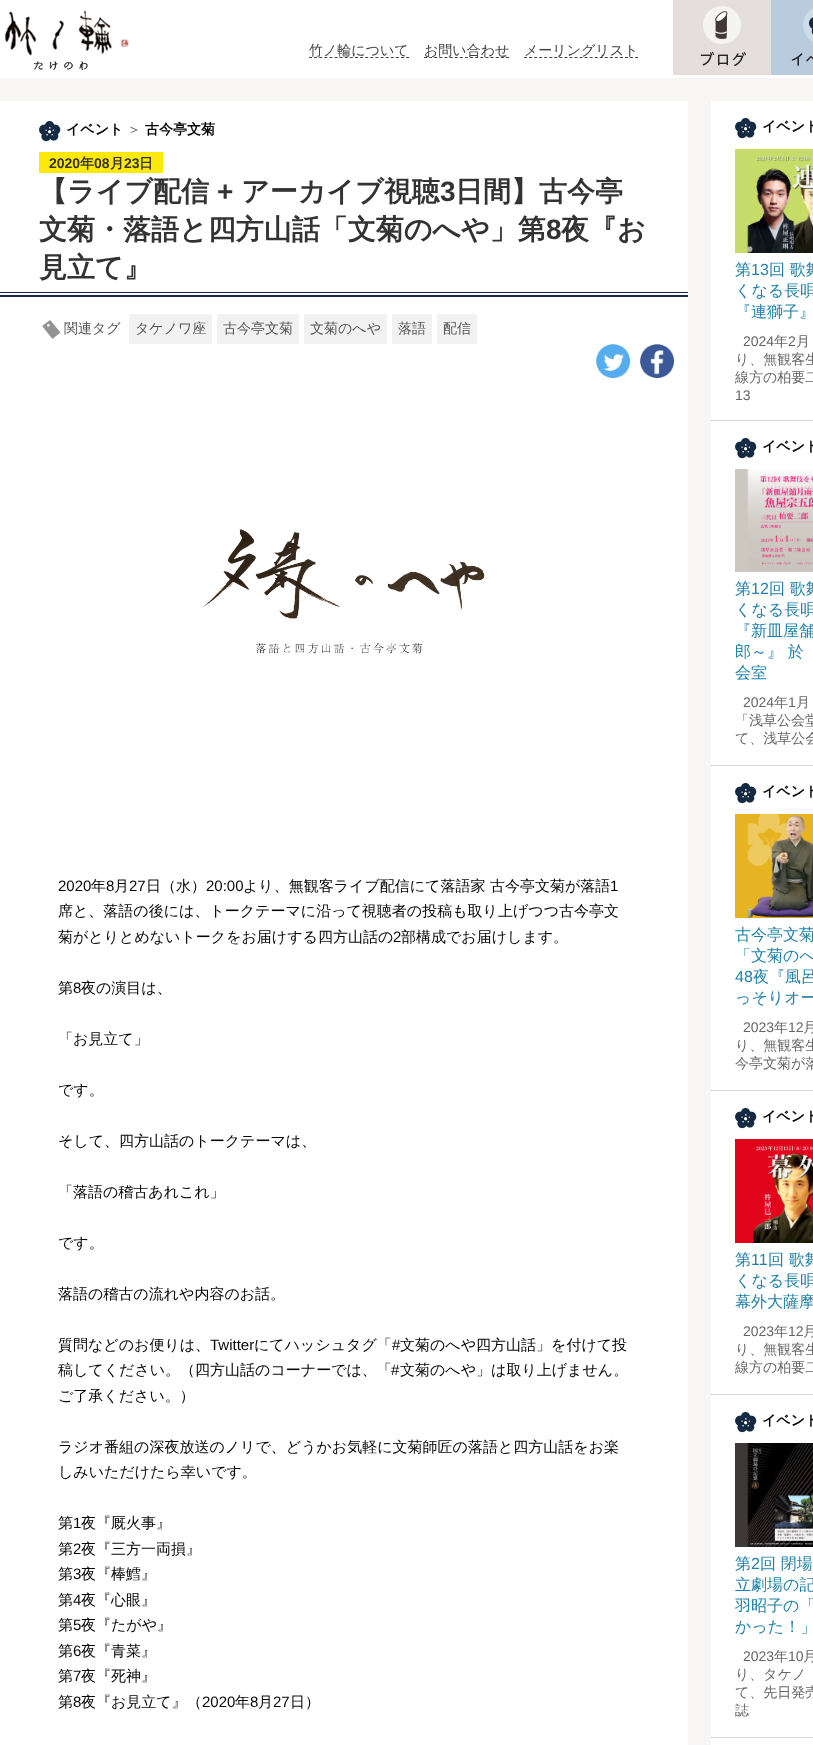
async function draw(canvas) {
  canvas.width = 813;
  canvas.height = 1745;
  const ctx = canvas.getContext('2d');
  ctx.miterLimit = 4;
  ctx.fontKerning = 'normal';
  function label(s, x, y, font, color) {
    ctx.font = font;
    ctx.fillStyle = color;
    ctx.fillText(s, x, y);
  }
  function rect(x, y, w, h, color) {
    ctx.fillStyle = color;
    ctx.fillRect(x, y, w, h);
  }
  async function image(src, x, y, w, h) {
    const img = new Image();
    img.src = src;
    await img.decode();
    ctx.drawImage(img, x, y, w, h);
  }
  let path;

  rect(0, 0, 813, 1745, '#fff');
  await image('assets/img1.png', 4, 10, 125, 60);
  path = new Path2D('M309 57.5H409');
  ctx.strokeStyle = '#414141';
  ctx.setLineDash([3, 2.11]);
  ctx.stroke(path);
  label('竹ノ輪について', 309, 55, '500 14px WenQuanYi Zen Hei', '#414141');
  path = new Path2D('M424 57.5H509');
  ctx.setLineDash([3, 2.12]);
  ctx.stroke(path);
  label('お問い合わせ', 424, 55, '500 14px WenQuanYi Zen Hei', '#414141');
  path = new Path2D('M524 57.5H638');
  ctx.setLineDash([3, 2.05]);
  ctx.stroke(path);
  label('メーリングリスト', 524, 55, '500 14px WenQuanYi Zen Hei', '#414141');
  await image('assets/img2.png', 673, 0, 98, 75);
  await image('assets/img3.png', 771, 0, 42, 75);
  rect(0, 78, 813, 1667, '#f8f6f4');
  rect(0, 101, 688, 1644, '#fff');
  rect(0, 292, 688, 1, '#142942');
  await image('assets/img4.png', 39, 121, 22, 21);
  label('イベント', 66, 134, 'bold 14px WenQuanYi Zen Hei', '#050505');
  label('＞', 127, 134, '500 14px WenQuanYi Zen Hei', '#555454');
  label('古今亭文菊', 145, 134, 'bold 14px WenQuanYi Zen Hei', '#050505');
  rect(39, 152, 124, 21, '#fce809');
  label('2020', 49, 168, 'bold 14px Liberation Sans', '#333');
  label('年', 80, 168, 'bold 14px WenQuanYi Zen Hei', '#333');
  label('08', 94, 168, 'bold 14px Liberation Sans', '#333');
  label('月', 110, 168, 'bold 14px WenQuanYi Zen Hei', '#333');
  label('23', 124, 168, 'bold 14px Liberation Sans', '#333');
  label('日', 139, 168, 'bold 14px WenQuanYi Zen Hei', '#333');
  label('【ライブ配信', 39, 201, 'bold 28px WenQuanYi Zen Hei', '#333');
  label('+', 217, 201, 'bold 28px Liberation Sans', '#333');
  label('アーカイブ視聴', 241, 201, 'bold 28px WenQuanYi Zen Hei', '#333');
  label('3', 440, 201, 'bold 28px Liberation Sans', '#333');
  label('日間】古今亭', 455, 201, 'bold 28px WenQuanYi Zen Hei', '#333');
  label('文菊・落語と四方山話「文菊のへや」第', 39, 239, 'bold 28px WenQuanYi Zen Hei', '#333');
  label('8', 546, 239, 'bold 28px Liberation Sans', '#333');
  label('夜『お', 561, 239, 'bold 28px WenQuanYi Zen Hei', '#333');
  label('見立て』', 39, 277, 'bold 28px WenQuanYi Zen Hei', '#333');
  rect(0, 295, 688, 2, '#142942');
  await image('assets/img5.png', 42, 320, 19, 19);
  label('関連タグ', 64, 333, '500 14px WenQuanYi Zen Hei', '#555454');
  rect(129, 314, 83, 30, '#f1f1f1');
  label('タケノワ座', 135, 333, '500 14px WenQuanYi Zen Hei', '#555454');
  rect(217, 314, 82, 30, '#f1f1f1');
  label('古今亭文菊', 223, 333, '500 14px WenQuanYi Zen Hei', '#555454');
  rect(304, 314, 83, 30, '#f1f1f1');
  label('文菊のへや', 310, 333, '500 14px WenQuanYi Zen Hei', '#555454');
  rect(392, 314, 40, 30, '#f1f1f1');
  label('落語', 398, 333, '500 14px WenQuanYi Zen Hei', '#555454');
  rect(437, 314, 40, 30, '#f1f1f1');
  label('配信', 443, 333, '500 14px WenQuanYi Zen Hei', '#555454');
  await image('assets/img6.png', 596, 344, 34, 34);
  await image('assets/img7.png', 640, 344, 34, 34);
  await image('assets/img8.png', 203, 529, 282, 125);
  label('2020', 58, 891, '15px Liberation Sans', '#050505');
  label('年', 91, 891, '500 15px WenQuanYi Zen Hei', '#050505');
  label('8', 106, 891, '15px Liberation Sans', '#050505');
  label('月', 114, 891, '500 15px WenQuanYi Zen Hei', '#050505');
  label('27', 129, 891, '15px Liberation Sans', '#050505');
  label('日（水）', 146, 891, '500 15px WenQuanYi Zen Hei', '#050505');
  label('20:00', 206, 891, '15px Liberation Sans', '#050505');
  label('より、無観客ライブ配信にて落語家 古今亭文菊が落語', 243, 891, '500 15px WenQuanYi Zen Hei', '#050505');
  label('1', 610, 891, '15px Liberation Sans', '#050505');
  label('席と、落語の後には、トークテーマに沿って視聴者の投稿も取り上げつつ古今亭文', 58, 916, '500 15px WenQuanYi Zen Hei', '#050505');
  label('菊がとりとめないトークをお届けする四方山話の', 58, 942, '500 15px WenQuanYi Zen Hei', '#050505');
  label('2', 393, 942, '15px Liberation Sans', '#050505');
  label('部構成でお届けします。', 401, 942, '500 15px WenQuanYi Zen Hei', '#050505');
  label('第', 58, 993, '500 15px WenQuanYi Zen Hei', '#050505');
  label('8', 73, 993, '15px Liberation Sans', '#050505');
  label('夜の演目は、', 81, 993, '500 15px WenQuanYi Zen Hei', '#050505');
  label('「お見立て」', 58, 1044, '500 15px WenQuanYi Zen Hei', '#050505');
  label('です。', 58, 1095, '500 15px WenQuanYi Zen Hei', '#050505');
  label('そして、四方山話のトークテーマは、', 58, 1146, '500 15px WenQuanYi Zen Hei', '#050505');
  label('「落語の稽古あれこれ」', 58, 1197, '500 15px WenQuanYi Zen Hei', '#050505');
  label('です。', 58, 1248, '500 15px WenQuanYi Zen Hei', '#050505');
  label('落語の稽古の流れや内容のお話。', 58, 1299, '500 15px WenQuanYi Zen Hei', '#050505');
  label('質問などのお便りは、', 58, 1350, '500 15px WenQuanYi Zen Hei', '#050505');
  label('Twitter', 210, 1350, '15px Liberation Sans', '#050505');
  label('にてハッシュタグ「', 254, 1350, '500 15px WenQuanYi Zen Hei', '#050505');
  label('#', 392, 1350, '15px Liberation Sans', '#050505');
  label('文菊のへや四方山話」を付けて投', 400, 1350, '500 15px WenQuanYi Zen Hei', '#050505');
  label('稿してください。（四方山話のコーナーでは、「', 58, 1375, '500 15px WenQuanYi Zen Hei', '#050505');
  label('#', 391, 1375, '15px Liberation Sans', '#050505');
  label('文菊のへや」は取り上げません。', 400, 1375, '500 15px WenQuanYi Zen Hei', '#050505');
  label('ご了承ください。）', 58, 1401, '500 15px WenQuanYi Zen Hei', '#050505');
  label('ラジオ番組の深夜放送のノリで、どうかお気軽に文菊師匠の落語と四方山話をお楽', 58, 1452, '500 15px WenQuanYi Zen Hei', '#050505');
  label('しみいただけたら幸いです。', 58, 1477, '500 15px WenQuanYi Zen Hei', '#050505');
  label('第', 58, 1528, '500 15px WenQuanYi Zen Hei', '#050505');
  label('1', 73, 1528, '15px Liberation Sans', '#050505');
  label('夜『厩火事』', 81, 1528, '500 15px WenQuanYi Zen Hei', '#050505');
  label('第', 58, 1554, '500 15px WenQuanYi Zen Hei', '#050505');
  label('2', 73, 1554, '15px Liberation Sans', '#050505');
  label('夜『三方一両損』', 81, 1554, '500 15px WenQuanYi Zen Hei', '#050505');
  label('第', 58, 1579, '500 15px WenQuanYi Zen Hei', '#050505');
  label('3', 73, 1579, '15px Liberation Sans', '#050505');
  label('夜『棒鱈』', 81, 1579, '500 15px WenQuanYi Zen Hei', '#050505');
  label('第', 58, 1605, '500 15px WenQuanYi Zen Hei', '#050505');
  label('4', 73, 1605, '15px Liberation Sans', '#050505');
  label('夜『心眼』', 81, 1605, '500 15px WenQuanYi Zen Hei', '#050505');
  label('第', 58, 1630, '500 15px WenQuanYi Zen Hei', '#050505');
  label('5', 73, 1630, '15px Liberation Sans', '#050505');
  label('夜『たがや』', 81, 1630, '500 15px WenQuanYi Zen Hei', '#050505');
  label('第', 58, 1656, '500 15px WenQuanYi Zen Hei', '#050505');
  label('6', 73, 1656, '15px Liberation Sans', '#050505');
  label('夜『青菜』', 81, 1656, '500 15px WenQuanYi Zen Hei', '#050505');
  label('第', 58, 1681, '500 15px WenQuanYi Zen Hei', '#050505');
  label('7', 73, 1681, '15px Liberation Sans', '#050505');
  label('夜『死神』', 81, 1681, '500 15px WenQuanYi Zen Hei', '#050505');
  label('第', 58, 1707, '500 15px WenQuanYi Zen Hei', '#050505');
  label('8', 73, 1707, '15px Liberation Sans', '#050505');
  label('夜『お見立て』（', 81, 1707, '500 15px WenQuanYi Zen Hei', '#050505');
  label('2020', 202, 1707, '15px Liberation Sans', '#050505');
  label('年', 235, 1707, '500 15px WenQuanYi Zen Hei', '#050505');
  label('8', 250, 1707, '15px Liberation Sans', '#050505');
  label('月', 258, 1707, '500 15px WenQuanYi Zen Hei', '#050505');
  label('27', 273, 1707, '15px Liberation Sans', '#050505');
  label('日）', 290, 1707, '500 15px WenQuanYi Zen Hei', '#050505');
  rect(711, 101, 102, 1644, '#fff');
  rect(711, 420, 102, 1, '#d9d7d6');
  await image('assets/img4.png', 735, 118, 22, 21);
  label('イベント', 762, 131, 'bold 14px WenQuanYi Zen Hei', '#050505');
  await image('assets/img9.png', 735, 149, 78, 104);
  label('第', 735, 275, '500 16px WenQuanYi Zen Hei', '#2281a8');
  label('13', 751, 275, '16px Liberation Sans', '#2281a8');
  label('回 歌舞', 769, 275, '500 16px WenQuanYi Zen Hei', '#2281a8');
  label('くなる長唄', 735, 296, '500 16px WenQuanYi Zen Hei', '#2281a8');
  label('『連獅子』', 735, 317, '500 16px WenQuanYi Zen Hei', '#2281a8');
  label('2024', 743, 346, '14px Liberation Sans', '#666');
  label('年', 774, 346, '500 14px WenQuanYi Zen Hei', '#666');
  label('2', 788, 346, '14px Liberation Sans', '#666');
  label('月', 796, 346, '500 14px WenQuanYi Zen Hei', '#666');
  label('り、無観客生', 735, 364, '500 14px WenQuanYi Zen Hei', '#666');
  label('線方の柏要二', 735, 382, '500 14px WenQuanYi Zen Hei', '#666');
  label('13', 735, 400, '14px Liberation Sans', '#666');
  rect(711, 765, 102, 1, '#d9d7d6');
  await image('assets/img4.png', 735, 438, 22, 21);
  label('イベント', 762, 451, 'bold 14px WenQuanYi Zen Hei', '#050505');
  await image('assets/img10.png', 735, 469, 78, 103);
  label('第', 735, 594, '500 16px WenQuanYi Zen Hei', '#2281a8');
  label('12', 751, 594, '16px Liberation Sans', '#2281a8');
  label('回 歌舞', 769, 594, '500 16px WenQuanYi Zen Hei', '#2281a8');
  label('くなる長唄', 735, 615, '500 16px WenQuanYi Zen Hei', '#2281a8');
  label('『新皿屋舗', 735, 636, '500 16px WenQuanYi Zen Hei', '#2281a8');
  label('郎～』 於', 735, 657, '500 16px WenQuanYi Zen Hei', '#2281a8');
  label('会室', 735, 678, '500 16px WenQuanYi Zen Hei', '#2281a8');
  label('2024', 743, 707, '14px Liberation Sans', '#666');
  label('年', 774, 707, '500 14px WenQuanYi Zen Hei', '#666');
  label('1', 788, 707, '14px Liberation Sans', '#666');
  label('月', 796, 707, '500 14px WenQuanYi Zen Hei', '#666');
  label('「浅草公会堂', 735, 725, '500 14px WenQuanYi Zen Hei', '#666');
  label('て、浅草公会', 735, 743, '500 14px WenQuanYi Zen Hei', '#666');
  rect(711, 1090, 102, 1, '#d9d7d6');
  await image('assets/img4.png', 735, 783, 22, 21);
  label('イベント', 762, 796, 'bold 14px WenQuanYi Zen Hei', '#050505');
  await image('assets/img11.png', 735, 814, 78, 104);
  label('古今亭文菊', 735, 940, '500 16px WenQuanYi Zen Hei', '#2281a8');
  label('「文菊のへ', 735, 961, '500 16px WenQuanYi Zen Hei', '#2281a8');
  label('48', 735, 982, '16px Liberation Sans', '#2281a8');
  label('夜『風呂', 753, 982, '500 16px WenQuanYi Zen Hei', '#2281a8');
  label('っそりオー', 735, 1003, '500 16px WenQuanYi Zen Hei', '#2281a8');
  label('2023', 743, 1032, '14px Liberation Sans', '#666');
  label('年', 774, 1032, '500 14px WenQuanYi Zen Hei', '#666');
  label('12', 788, 1032, '14px Liberation Sans', '#666');
  label('月', 803, 1032, '500 14px WenQuanYi Zen Hei', '#666');
  label('り、無観客生', 735, 1050, '500 14px WenQuanYi Zen Hei', '#666');
  label('今亭文菊が落', 735, 1068, '500 14px WenQuanYi Zen Hei', '#666');
  rect(711, 1394, 102, 1, '#d9d7d6');
  await image('assets/img4.png', 735, 1108, 22, 21);
  label('イベント', 762, 1121, 'bold 14px WenQuanYi Zen Hei', '#050505');
  await image('assets/img12.png', 735, 1139, 78, 104);
  label('第', 735, 1265, '500 16px WenQuanYi Zen Hei', '#2281a8');
  label('11', 751, 1265, '16px Liberation Sans', '#2281a8');
  label('回 歌舞', 768, 1265, '500 16px WenQuanYi Zen Hei', '#2281a8');
  label('くなる長唄', 735, 1286, '500 16px WenQuanYi Zen Hei', '#2281a8');
  label('幕外大薩摩', 735, 1307, '500 16px WenQuanYi Zen Hei', '#2281a8');
  label('2023', 743, 1336, '14px Liberation Sans', '#666');
  label('年', 774, 1336, '500 14px WenQuanYi Zen Hei', '#666');
  label('12', 788, 1336, '14px Liberation Sans', '#666');
  label('月', 803, 1336, '500 14px WenQuanYi Zen Hei', '#666');
  label('り、無観客生', 735, 1354, '500 14px WenQuanYi Zen Hei', '#666');
  label('線方の柏要二', 735, 1372, '500 14px WenQuanYi Zen Hei', '#666');
  rect(711, 1737, 102, 1, '#d9d7d6');
  await image('assets/img4.png', 735, 1412, 22, 21);
  label('イベント', 762, 1425, 'bold 14px WenQuanYi Zen Hei', '#050505');
  await image('assets/img13.png', 735, 1443, 78, 104);
  label('第', 735, 1569, '500 16px WenQuanYi Zen Hei', '#2281a8');
  label('2', 751, 1569, '16px Liberation Sans', '#2281a8');
  label('回 閉場', 760, 1569, '500 16px WenQuanYi Zen Hei', '#2281a8');
  label('立劇場の記', 735, 1590, '500 16px WenQuanYi Zen Hei', '#2281a8');
  label('羽昭子の「', 735, 1611, '500 16px WenQuanYi Zen Hei', '#2281a8');
  label('かった！」', 735, 1632, '500 16px WenQuanYi Zen Hei', '#2281a8');
  label('2023', 743, 1661, '14px Liberation Sans', '#666');
  label('年', 774, 1661, '500 14px WenQuanYi Zen Hei', '#666');
  label('10', 788, 1661, '14px Liberation Sans', '#666');
  label('月', 803, 1661, '500 14px WenQuanYi Zen Hei', '#666');
  label('り、タケノ', 735, 1679, '500 14px WenQuanYi Zen Hei', '#666');
  label('て、先日発売', 735, 1697, '500 14px WenQuanYi Zen Hei', '#666');
  label('誌', 735, 1715, '500 14px WenQuanYi Zen Hei', '#666');
}

draw(document.querySelector('canvas'));
